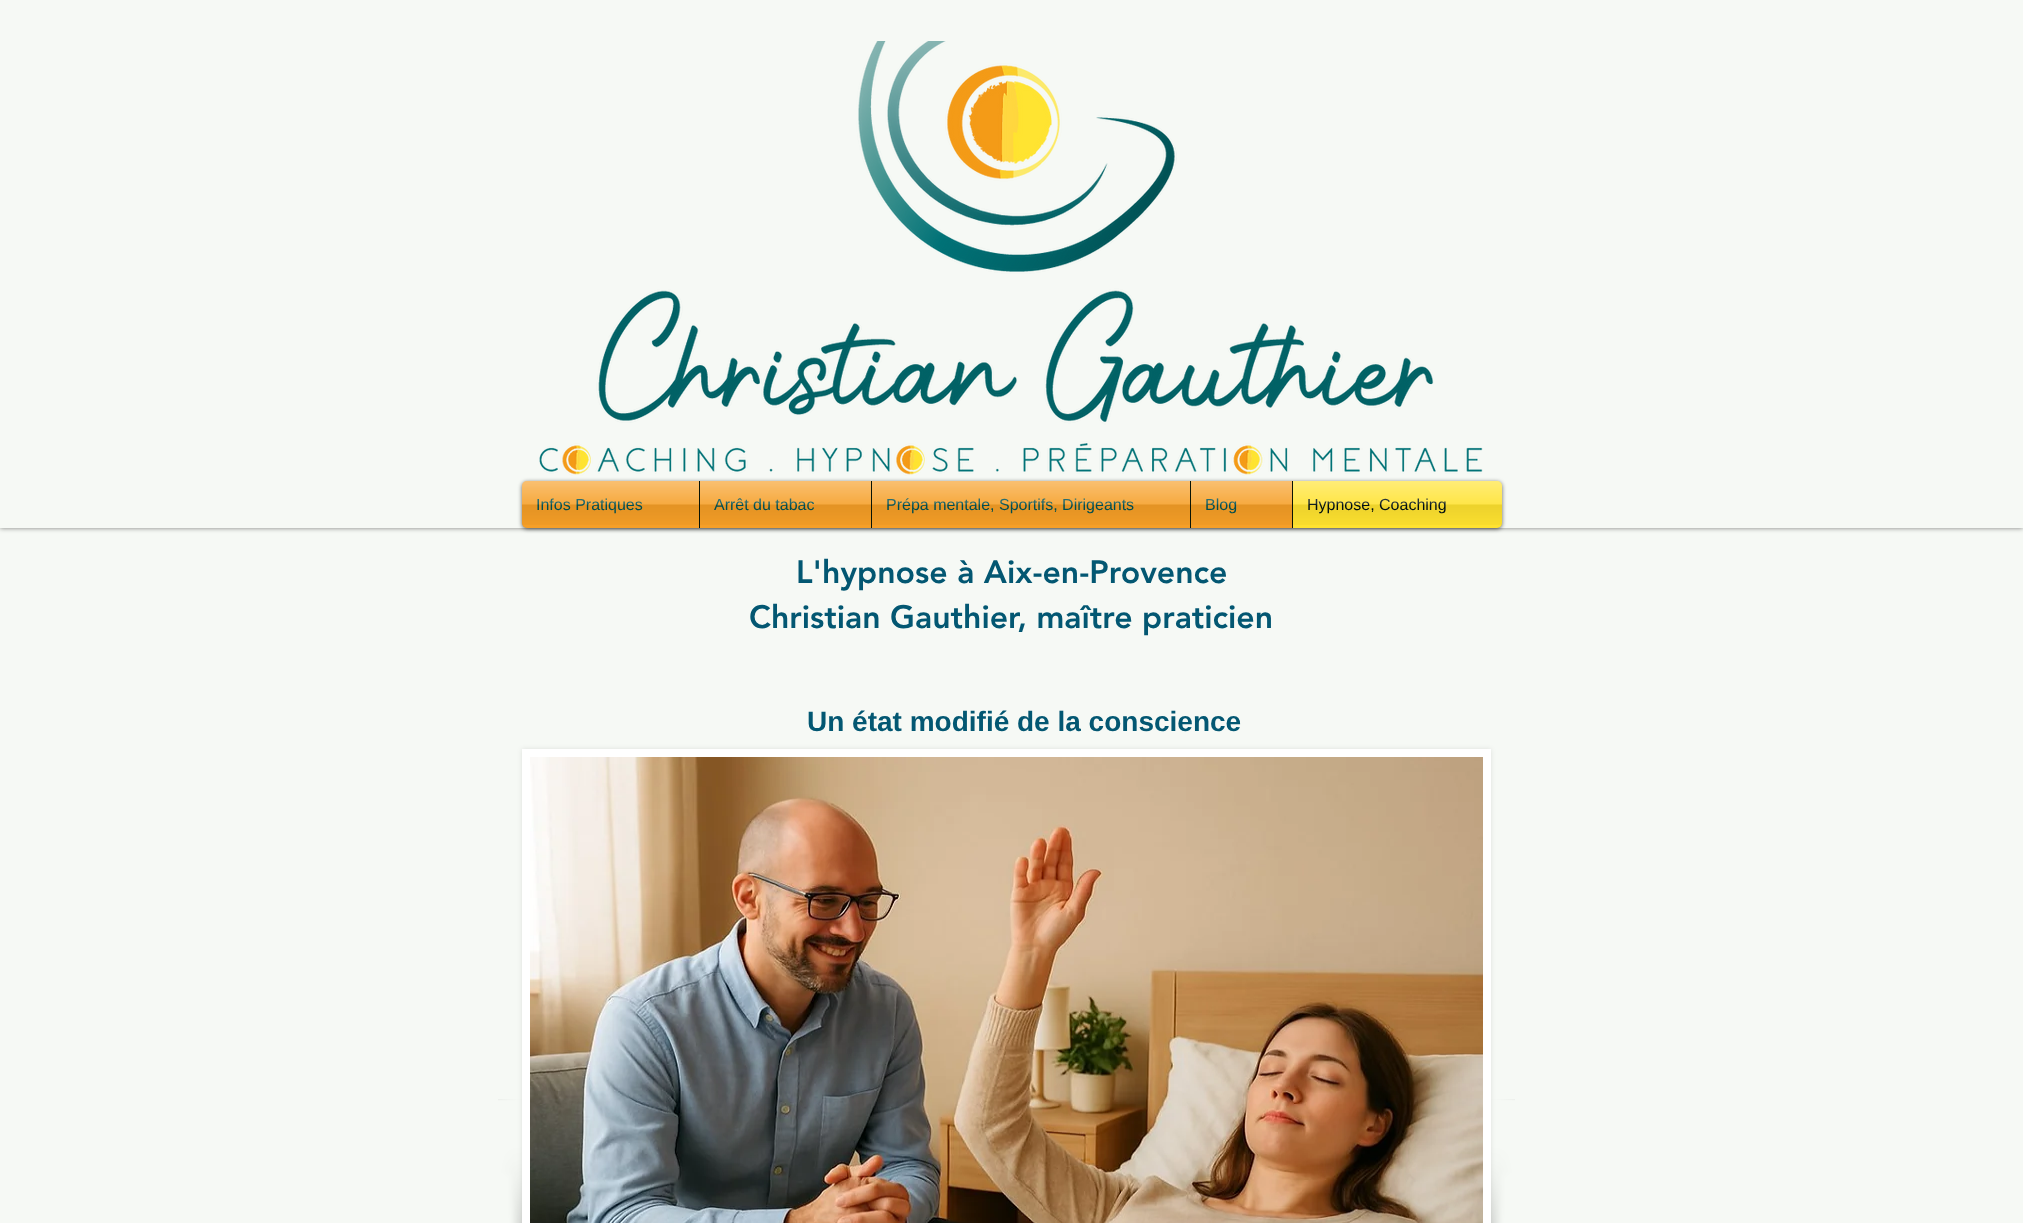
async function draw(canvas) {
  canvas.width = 2023;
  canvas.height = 1223;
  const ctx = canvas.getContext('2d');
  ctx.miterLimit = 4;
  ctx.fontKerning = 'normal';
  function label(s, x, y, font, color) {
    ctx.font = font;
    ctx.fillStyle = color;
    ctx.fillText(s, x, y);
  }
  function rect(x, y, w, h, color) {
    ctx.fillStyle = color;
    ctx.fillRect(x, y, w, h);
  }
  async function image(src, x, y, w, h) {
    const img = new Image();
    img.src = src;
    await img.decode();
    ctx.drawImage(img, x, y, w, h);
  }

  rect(0, 0, 2023, 1223, '#f6f9f5');
  ctx.fillStyle = '#00000080';
  ctx.filter = 'blur(2.5px)';
  ctx.beginPath();
  ctx.rect(0, 0, 2023, 528);
  ctx.fill();
  ctx.filter = 'none';
  rect(0, 0, 2023, 528, '#f6f9f5');
  await image('assets/img1.png', 539, 41, 944, 435);
  ctx.fillStyle = '#00000099';
  ctx.filter = 'blur(2px)';
  ctx.beginPath();
  ctx.roundRect(522, 482, 980, 47, 5);
  ctx.fill();
  ctx.filter = 'none';
  await image('assets/img2.png', 522, 481, 980, 43);
  ctx.fillStyle = '#f69f27';
  ctx.beginPath();
  ctx.roundRect(522, 481, 177, 47, [5, 0, 0, 5]);
  ctx.fill();
  label('Infos Pratiques', 536, 510, '16px Liberation Sans', '#005255');
  await image('assets/img3.png', 522, 481, 177, 44);
  rect(700, 481, 171, 47, '#f69f27');
  rect(699, 481, 1, 47, '#091405');
  label('Arrêt du tabac', 714, 510, '16px Liberation Sans', '#005255');
  await image('assets/img4.png', 700, 481, 171, 44);
  rect(872, 481, 318, 47, '#f69f27');
  rect(871, 481, 1, 47, '#091405');
  label('Prépa mentale, Sportifs, Dirigeants', 886, 510, '16px Liberation Sans', '#005255');
  await image('assets/img5.png', 872, 481, 318, 44);
  rect(1191, 481, 101, 47, '#f69f27');
  rect(1190, 481, 1, 47, '#091405');
  label('Blog', 1205, 510, '16px Liberation Sans', '#005255');
  await image('assets/img6.png', 1191, 481, 101, 44);
  ctx.fillStyle = '#ffe330';
  ctx.beginPath();
  ctx.roundRect(1292, 481, 210, 47, [0, 5, 5, 0]);
  ctx.fill();
  rect(1292, 481, 1, 47, '#091405');
  label('Hypnose, Coaching', 1307, 510, '16px Liberation Sans', '#011014');
  await image('assets/img7.png', 1293, 481, 209, 44);
  label('L\'hypnose à Aix-en-Provence', 796, 583, '900 32px "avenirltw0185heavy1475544"', '#035772');
  label('Christian Gauthier, maître praticien', 749, 628, '900 32px "avenirltw0185heavy1475544"', '#035772');
  label('Un état modifié de la conscience', 807, 731, 'bold 28px Liberation Sans', '#035772');
  ctx.fillStyle = '#0000001a';
  ctx.filter = 'blur(2.5px)';
  ctx.beginPath();
  ctx.rect(522, 749, 969, 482);
  ctx.fill();
  ctx.filter = 'none';
  await image('assets/img8.png', 498, 1099, 24, 124);
  rect(522, 749, 969, 474, '#fff');
  await image('assets/img9.png', 530, 757, 953, 466);
  await image('assets/img10.png', 1491, 1099, 24, 124);
}

draw(document.querySelector('canvas'));
